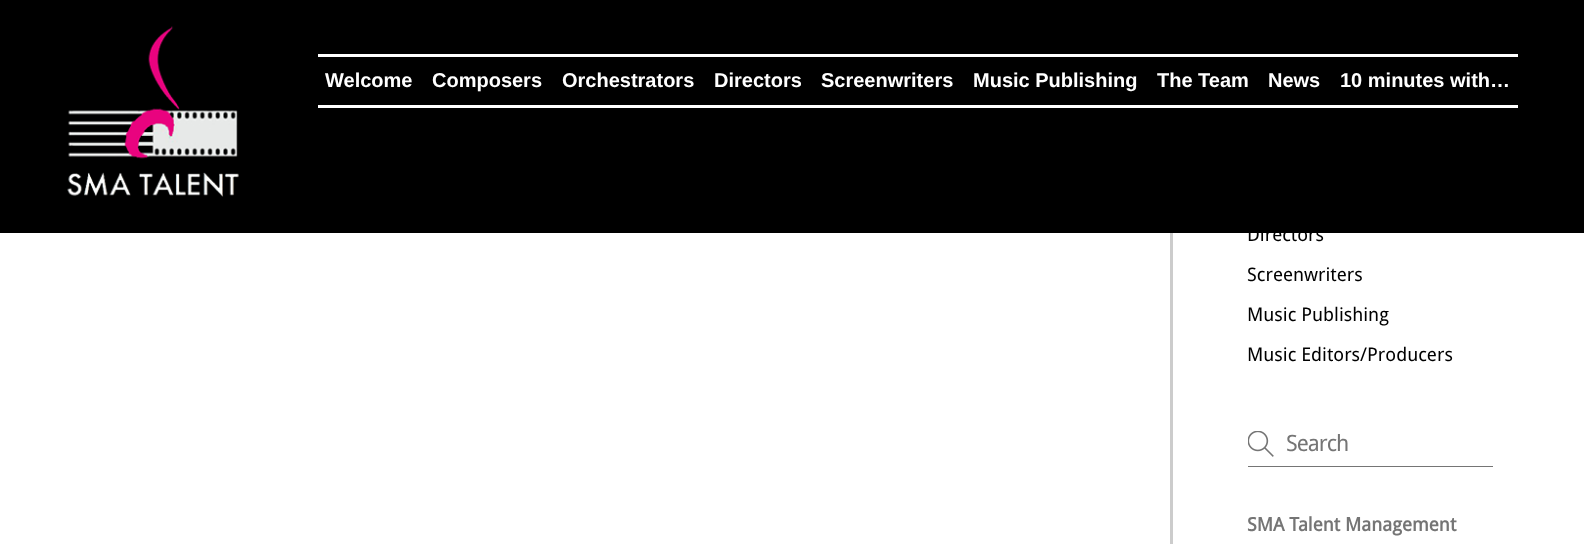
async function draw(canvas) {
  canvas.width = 1584;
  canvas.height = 544;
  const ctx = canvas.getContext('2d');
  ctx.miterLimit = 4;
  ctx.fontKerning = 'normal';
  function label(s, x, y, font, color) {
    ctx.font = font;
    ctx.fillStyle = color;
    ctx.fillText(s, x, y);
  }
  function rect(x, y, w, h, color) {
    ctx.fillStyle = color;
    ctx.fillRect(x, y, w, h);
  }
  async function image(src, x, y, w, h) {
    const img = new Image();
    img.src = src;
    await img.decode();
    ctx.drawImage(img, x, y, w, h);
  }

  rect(0, 0, 1584, 544, '#fff');
  rect(0, 0, 1584, 233, '#000');
  await image('assets/img1.png', 67, 26, 172, 171);
  rect(318, 54, 1200, 3, '#fff');
  rect(318, 105, 1200, 3, '#fff');
  label('Welcome', 325, 87, 'bold 20px Liberation Sans', '#fff');
  label('Composers', 432, 87, 'bold 20px Liberation Sans', '#fff');
  label('Orchestrators', 562, 87, 'bold 20px Liberation Sans', '#fff');
  label('Directors', 714, 87, 'bold 20px Liberation Sans', '#fff');
  label('Screenwriters', 821, 87, 'bold 20px Liberation Sans', '#fff');
  label('Music Publishing', 973, 87, 'bold 20px Liberation Sans', '#fff');
  label('The Team', 1157, 87, 'bold 20px Liberation Sans', '#fff');
  label('News', 1268, 87, 'bold 20px Liberation Sans', '#fff');
  label('10 minutes with…', 1340, 87, 'bold 20px Liberation Sans', '#fff');
  rect(1170, 233, 3, 311, '#ccc');
  label('Directors', 1247, 241, '18.75px Droid Sans', '#000');
  label('Screenwriters', 1247, 281, '18.75px Droid Sans', '#000');
  label('Music Publishing', 1247, 321, '18.75px Droid Sans', '#000');
  label('Music Editors/Producers', 1247, 361, '18.75px Droid Sans', '#000');
  rect(1248, 466, 245, 1, '#757575');
  await image('assets/img2.png', 1248, 431, 26, 26);
  ctx.letterSpacing = '-1px';
  label('Search', 1286, 451, '22.5px Droid Sans', '#757575');
  ctx.letterSpacing = '0px';
  label('SMA Talent Management', 1247, 531, 'bold 18.75px Droid Sans', '#757575');
}

draw(document.querySelector('canvas'));
